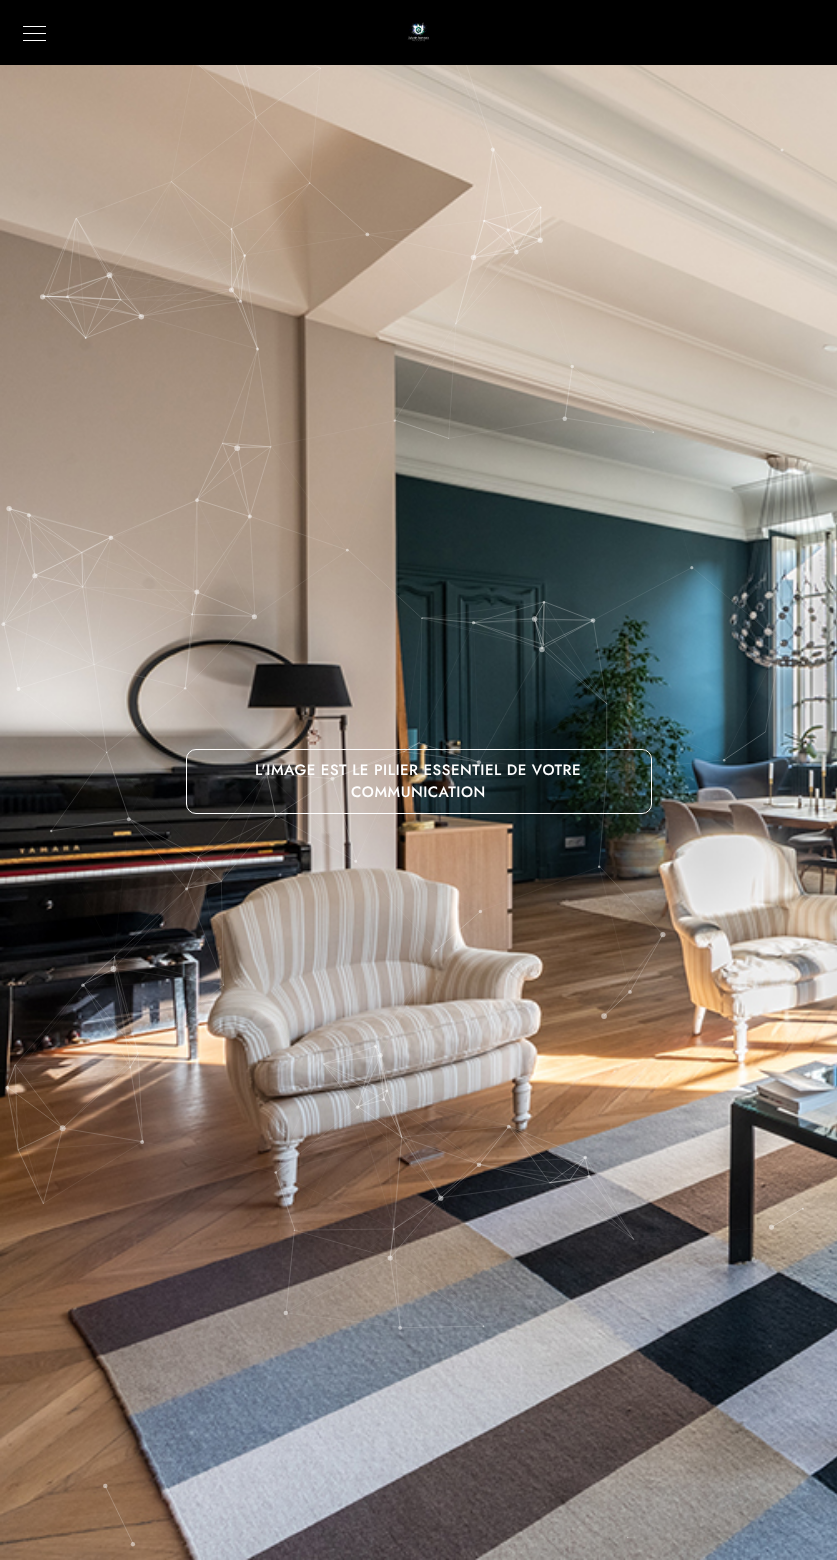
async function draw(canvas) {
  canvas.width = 837;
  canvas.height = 1560;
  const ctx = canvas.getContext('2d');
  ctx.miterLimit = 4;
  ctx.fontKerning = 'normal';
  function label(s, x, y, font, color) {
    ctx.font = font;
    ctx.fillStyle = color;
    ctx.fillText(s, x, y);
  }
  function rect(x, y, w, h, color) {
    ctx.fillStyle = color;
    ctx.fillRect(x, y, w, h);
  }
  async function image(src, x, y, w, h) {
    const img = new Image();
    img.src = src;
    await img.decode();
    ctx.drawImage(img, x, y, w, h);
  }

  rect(0, 0, 837, 1560, '#fff');
  rect(0, 0, 837, 65, '#000');
  await image('assets/img1.png', 407, 22, 23, 20);
  rect(23, 33, 23, 1, '#fff');
  rect(23, 26, 23, 1, '#fff');
  rect(23, 40, 23, 1, '#fff');
  await image('assets/img2.png', 0, 65, 837, 1495);
  await image('assets/img3.png', 1, 65, 803, 1482);
  ctx.beginPath();
  ctx.roundRect(186.5, 749.5, 465, 64, 9.5);
  ctx.strokeStyle = '#fff';
  ctx.stroke();
  ctx.letterSpacing = '0.5px';
  label('L\'IMAGE EST LE PILIER ESSENTIEL DE VOTRE', 255, 775, '500 15px Jost', '#fff');
  label('COMMUNICATION', 351, 797, '500 15px Jost', '#fff');
}

draw(document.querySelector('canvas'));
